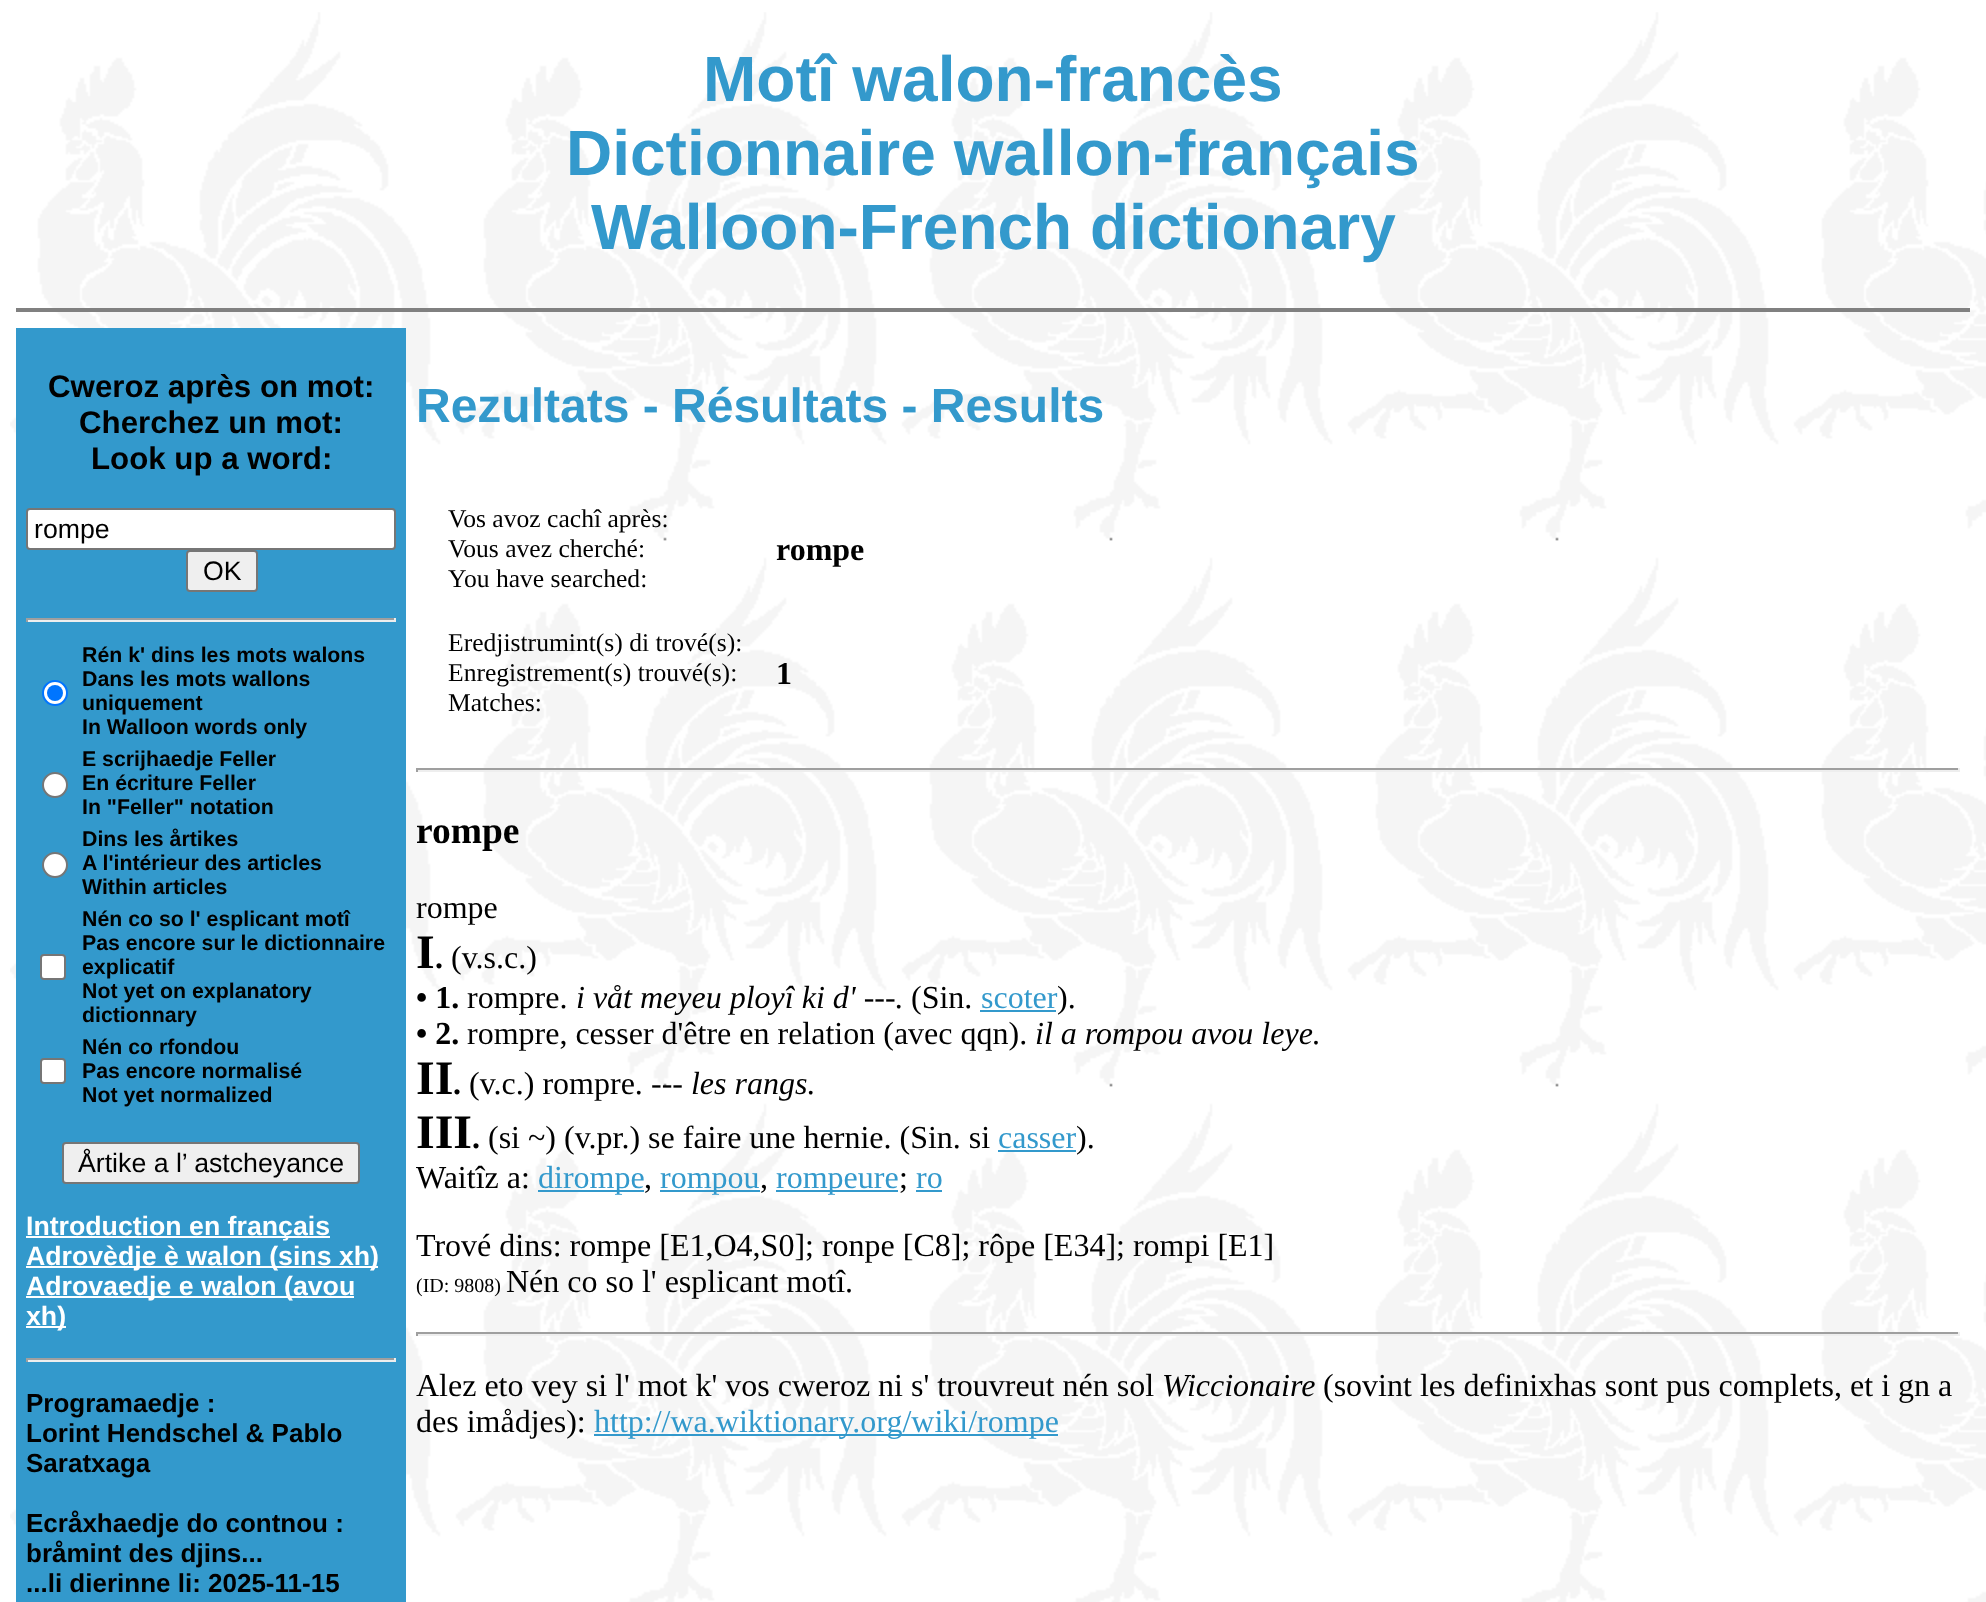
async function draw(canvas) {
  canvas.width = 1986;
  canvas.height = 1602;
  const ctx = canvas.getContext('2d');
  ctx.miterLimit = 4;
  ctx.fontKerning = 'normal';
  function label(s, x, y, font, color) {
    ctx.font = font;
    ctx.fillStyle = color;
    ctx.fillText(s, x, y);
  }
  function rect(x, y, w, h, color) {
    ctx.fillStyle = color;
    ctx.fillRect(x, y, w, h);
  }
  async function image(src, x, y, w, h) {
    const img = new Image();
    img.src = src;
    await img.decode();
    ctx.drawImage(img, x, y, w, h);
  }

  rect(0, 0, 1986, 1602, '#fff');
  await image('assets/img1.png', 10, 12, 1976, 1590);
  label('Motî walon-francès', 703, 101, 'bold 64px Liberation Sans', '#39c');
  label('Dictionnaire wallon-français', 566, 175, 'bold 64px Liberation Sans', '#39c');
  label('Walloon-French dictionary', 591, 249, 'bold 64px Liberation Sans', '#39c');
  rect(16, 308, 1954, 4, '#808080');
  rect(16, 328, 390, 1274, '#39c');
  label('Cweroz après on mot:', 48, 397, 'bold 31.25px Liberation Sans', '#000');
  label('Cherchez un mot:', 79, 433, 'bold 31.25px Liberation Sans', '#000');
  label('Look up a word:', 91, 469, 'bold 31.25px Liberation Sans', '#000');
  ctx.fillStyle = '#fff';
  ctx.beginPath();
  ctx.roundRect(27, 509, 368, 40, 3);
  ctx.fill();
  ctx.strokeStyle = '#767676';
  ctx.lineWidth = 2;
  ctx.stroke();
  label('rompe', 34, 538, '26.7px Liberation Sans', '#000');
  ctx.fillStyle = '#efefef';
  ctx.beginPath();
  ctx.roundRect(187, 551, 70, 40, 3);
  ctx.fill();
  ctx.stroke();
  label('OK', 203, 580, '26.7px Liberation Sans', '#000');
  rect(26, 618, 370, 2, '#9f9f9f');
  rect(394, 618, 2, 4, '#eee');
  rect(26, 620, 370, 2, '#eee');
  rect(26, 618, 2, 4, '#9f9f9f');
  ctx.fillStyle = '#fff';
  ctx.beginPath();
  ctx.arc(55, 693, 12, 0, 2 * Math.PI);
  ctx.fill();
  ctx.strokeStyle = '#0075ff';
  ctx.stroke();
  ctx.fillStyle = '#0075ff';
  ctx.beginPath();
  ctx.arc(55, 693, 8, 0, 2 * Math.PI);
  ctx.fill();
  label('Rén k\' dins les mots walons', 82, 662, 'bold 21.3px Liberation Sans', '#000');
  label('Dans les mots wallons', 82, 686, 'bold 21.3px Liberation Sans', '#000');
  label('uniquement', 82, 710, 'bold 21.3px Liberation Sans', '#000');
  label('In Walloon words only', 82, 734, 'bold 21.3px Liberation Sans', '#000');
  ctx.fillStyle = '#fff';
  ctx.beginPath();
  ctx.arc(55, 785, 12, 0, 2 * Math.PI);
  ctx.fill();
  ctx.strokeStyle = '#767676';
  ctx.stroke();
  label('E scrijhaedje Feller', 82, 766, 'bold 21.3px Liberation Sans', '#000');
  label('En écriture Feller', 82, 790, 'bold 21.3px Liberation Sans', '#000');
  label('In "Feller" notation', 82, 814, 'bold 21.3px Liberation Sans', '#000');
  ctx.fillStyle = '#fff';
  ctx.beginPath();
  ctx.arc(55, 865, 12, 0, 2 * Math.PI);
  ctx.fill();
  ctx.stroke();
  label('Dins les årtikes', 82, 846, 'bold 21.3px Liberation Sans', '#000');
  label('A l\'intérieur des articles', 82, 870, 'bold 21.3px Liberation Sans', '#000');
  label('Within articles', 82, 894, 'bold 21.3px Liberation Sans', '#000');
  ctx.fillStyle = '#fff';
  ctx.beginPath();
  ctx.roundRect(41, 955, 24, 24, 3);
  ctx.fill();
  ctx.stroke();
  label('Nén co so l\' esplicant motî', 82, 926, 'bold 21.3px Liberation Sans', '#000');
  label('Pas encore sur le dictionnaire', 82, 950, 'bold 21.3px Liberation Sans', '#000');
  label('explicatif', 82, 974, 'bold 21.3px Liberation Sans', '#000');
  label('Not yet on explanatory', 82, 998, 'bold 21.3px Liberation Sans', '#000');
  label('dictionnary', 82, 1022, 'bold 21.3px Liberation Sans', '#000');
  ctx.fillStyle = '#fff';
  ctx.beginPath();
  ctx.roundRect(41, 1059, 24, 24, 3);
  ctx.fill();
  ctx.stroke();
  label('Nén co rfondou', 82, 1054, 'bold 21.3px Liberation Sans', '#000');
  label('Pas encore normalisé', 82, 1078, 'bold 21.3px Liberation Sans', '#000');
  label('Not yet normalized', 82, 1102, 'bold 21.3px Liberation Sans', '#000');
  ctx.fillStyle = '#efefef';
  ctx.beginPath();
  ctx.roundRect(63, 1143, 296, 40, 3);
  ctx.fill();
  ctx.stroke();
  label('Årtike a l’ astcheyance', 78, 1172, '26.7px Liberation Sans', '#000');
  rect(26, 1236, 304, 2, '#fff');
  label('Introduction en français', 26, 1235, 'bold 26.7px Liberation Sans', '#fff');
  rect(26, 1266, 352, 2, '#fff');
  label('Adrovèdje è walon (sins xh)', 26, 1265, 'bold 26.7px Liberation Sans', '#fff');
  rect(26, 1296, 328, 2, '#fff');
  label('Adrovaedje e walon (avou', 26, 1295, 'bold 26.7px Liberation Sans', '#fff');
  rect(26, 1326, 40, 2, '#fff');
  label('xh)', 26, 1325, 'bold 26.7px Liberation Sans', '#fff');
  rect(26, 1358, 370, 2, '#9f9f9f');
  rect(394, 1358, 2, 4, '#eee');
  rect(26, 1360, 370, 2, '#eee');
  rect(26, 1358, 2, 4, '#9f9f9f');
  label('Programaedje :', 26, 1412, 'bold 26px Liberation Sans', '#000');
  label('Lorint Hendschel & Pablo', 26, 1442, 'bold 26px Liberation Sans', '#000');
  label('Saratxaga', 26, 1472, 'bold 26px Liberation Sans', '#000');
  label('Ecråxhaedje do contnou :', 26, 1532, 'bold 26px Liberation Sans', '#000');
  label('bråmint des djins...', 26, 1562, 'bold 26px Liberation Sans', '#000');
  label('...li dierinne li: 2025-11-15', 26, 1592, 'bold 26px Liberation Sans', '#000');
  label('Rezultats - Résultats - Results', 416, 422, 'bold 48px Liberation Sans', '#39c');
  label('Vos avoz cachî après:', 448, 527, '25.6px Liberation Serif', '#000');
  label('Vous avez cherché:', 448, 557, '25.6px Liberation Serif', '#000');
  label('You have searched:', 448, 587, '25.6px Liberation Serif', '#000');
  label('rompe', 776, 560, 'bold 32px Liberation Serif', '#000');
  label('Eredjistrumint(s) di trové(s):', 448, 651, '25.6px Liberation Serif', '#000');
  label('Enregistrement(s) trouvé(s):', 448, 681, '25.6px Liberation Serif', '#000');
  label('Matches:', 448, 711, '25.6px Liberation Serif', '#000');
  label('1', 776, 684, 'bold 32px Liberation Serif', '#000');
  rect(416, 768, 1544, 2, '#9f9f9f');
  rect(1958, 768, 2, 4, '#eee');
  rect(416, 770, 1544, 2, '#eee');
  rect(416, 768, 2, 4, '#9f9f9f');
  label('rompe', 416, 843, 'bold 37.5px Liberation Serif', '#000');
  label('rompe', 416, 918, '32px Liberation Serif', '#000');
  label('I', 416, 968, 'bold 48px Liberation Serif', '#000');
  label('.', 435, 968, 'bold 32px Liberation Serif', '#000');
  label('(v.s.c.)', 451, 968, '32px Liberation Serif', '#000');
  label('• 1.', 416, 1008, 'bold 32px Liberation Serif', '#000');
  label('rompre.', 467, 1008, '32px Liberation Serif', '#000');
  label('i våt meyeu ployî ki d\' ---.', 576, 1008, 'italic 32px Liberation Serif', '#000');
  label('(Sin.', 911, 1008, '32px Liberation Serif', '#000');
  label('scoter', 981, 1008, '32px Liberation Serif', '#39c');
  rect(980, 1010, 76, 2, '#39c');
  label(').', 1057, 1008, '32px Liberation Serif', '#000');
  label('• 2.', 416, 1044, 'bold 32px Liberation Serif', '#000');
  label('rompre, cesser d\'être en relation (avec qqn).', 467, 1044, '32px Liberation Serif', '#000');
  label('il a rompou avou leye.', 1035, 1044, 'italic 32px Liberation Serif', '#000');
  label('II', 416, 1094, 'bold 48px Liberation Serif', '#000');
  label('.', 453, 1094, 'bold 32px Liberation Serif', '#000');
  label('(v.c.) rompre.', 469, 1094, '32px Liberation Serif', '#000');
  label('--- les rangs.', 651, 1094, 'italic 32px Liberation Serif', '#000');
  label('III', 416, 1148, 'bold 48px Liberation Serif', '#000');
  label('.', 472, 1148, 'bold 32px Liberation Serif', '#000');
  label('(si ~) (v.pr.) se faire une hernie. (Sin. si', 488, 1148, '32px Liberation Serif', '#000');
  label('casser', 998, 1148, '32px Liberation Serif', '#39c');
  rect(998, 1150, 78, 2, '#39c');
  label(').', 1076, 1148, '32px Liberation Serif', '#000');
  label('Waitîz a:', 416, 1188, '32px Liberation Serif', '#000');
  rect(538, 1190, 106, 2, '#39c');
  label('dirompe', 538, 1188, '32px Liberation Serif', '#39c');
  label(',', 644, 1188, '32px Liberation Serif', '#000');
  rect(660, 1190, 100, 2, '#39c');
  label('rompou', 660, 1188, '32px Liberation Serif', '#39c');
  label(',', 760, 1188, '32px Liberation Serif', '#000');
  rect(776, 1190, 122, 2, '#39c');
  label('rompeure', 776, 1188, '32px Liberation Serif', '#39c');
  label(';', 899, 1188, '32px Liberation Serif', '#000');
  label('ro', 916, 1188, '32px Liberation Serif', '#39c');
  rect(916, 1190, 26, 2, '#39c');
  label('Trové dins: rompe [E1,O4,S0]; ronpe [C8]; rôpe [E34]; rompi [E1]', 416, 1256, '32px Liberation Serif', '#000');
  label('(ID: 9808)', 416, 1292, '20px Liberation Serif', '#000');
  label('Nén co so l\' esplicant motî.', 506, 1292, '32px Liberation Serif', '#000');
  rect(416, 1332, 1544, 2, '#9f9f9f');
  rect(1958, 1332, 2, 4, '#eee');
  rect(416, 1334, 1544, 2, '#eee');
  rect(416, 1332, 2, 4, '#9f9f9f');
  label('Alez eto vey si l\' mot k\' vos cweroz ni s\' trouvreut nén sol', 416, 1396, '32px Liberation Serif', '#000');
  label('Wiccionaire', 1162, 1396, 'italic 32px Liberation Serif', '#000');
  label('(sovint les definixhas sont pus complets, et i gn a', 1323, 1396, '32px Liberation Serif', '#000');
  label('des imådjes):', 416, 1432, '32px Liberation Serif', '#000');
  rect(594, 1434, 464, 2, '#39c');
  label('http://wa.wiktionary.org/wiki/rompe', 594, 1432, '32px Liberation Serif', '#39c');
}

draw(document.querySelector('canvas'));
